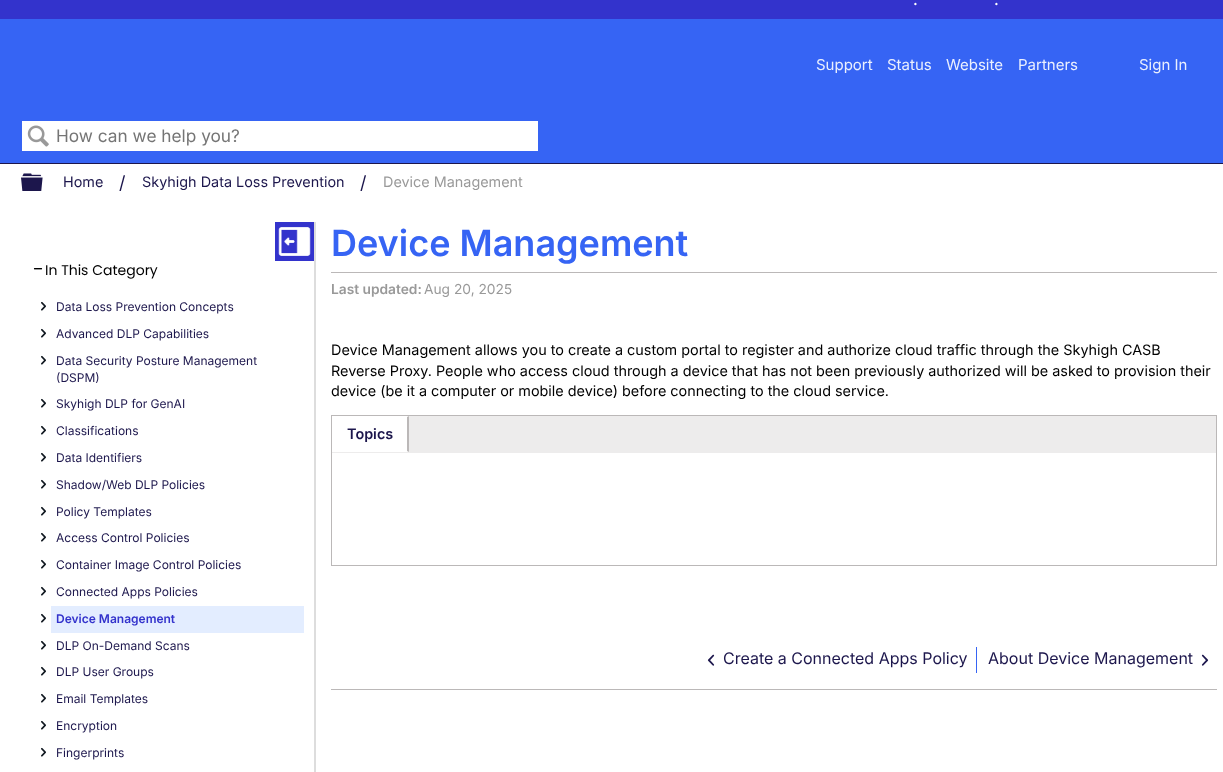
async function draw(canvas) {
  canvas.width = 1223;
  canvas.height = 772;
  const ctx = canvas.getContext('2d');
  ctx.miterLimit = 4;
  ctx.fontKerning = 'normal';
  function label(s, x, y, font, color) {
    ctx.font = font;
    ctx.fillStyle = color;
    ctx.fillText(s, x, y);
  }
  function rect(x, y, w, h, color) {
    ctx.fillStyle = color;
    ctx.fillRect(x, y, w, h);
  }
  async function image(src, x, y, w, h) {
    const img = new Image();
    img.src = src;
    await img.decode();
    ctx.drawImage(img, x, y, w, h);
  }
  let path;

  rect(0, 0, 1223, 772, '#fff');
  rect(0, 0, 1223, 19, '#33c');
  label('.', 913, 5, '600 15px Inter', '#fff');
  label('.', 994, 5, '600 15px Inter', '#fff');
  rect(0, 19, 1223, 92, '#3664f4');
  label('Support', 816, 70, '15px Inter', '#ebf0fe');
  label('Status', 887, 70, '15px Inter', '#ebf0fe');
  label('Website', 946, 70, '15px Inter', '#ebf0fe');
  label('Partners', 1018, 70, '15px Inter', '#ebf0fe');
  label('Sign In', 1139, 70, '15px Inter', '#ebf0fe');
  rect(0, 111, 1223, 52, '#3664f4');
  rect(22, 121, 516, 30, '#fff');
  await image('assets/img1.png', 27, 125, 22, 22);
  label('How can we help you?', 56, 142, '17.25px Inter', '#757575');
  rect(0, 163, 1223, 1, '#1c164c');
  await image('assets/img2.png', 21, 173, 22, 18);
  label('Home', 63, 187, '14.4px Inter', '#1c164c');
  label('/', 119, 189, '18px Inter', '#1c164c');
  label('Skyhigh Data Loss Prevention', 142, 187, '14.4px Inter', '#1c164c');
  label('/', 360, 189, '18px Inter', '#1c164c');
  label('Device Management', 383, 187, '14.4px Inter', '#999');
  rect(314, 222, 2, 550, '#ddd');
  rect(275, 222, 39, 39, '#33c');
  await image('assets/img3.png', 278, 227, 33, 29);
  await image('assets/img4.png', 33, 268, 10, 2);
  label('In This Category', 45, 275, '14px Poppins', '#000');
  await image('assets/img5.png', 41, 301, 5, 10);
  label('Data Loss Prevention Concepts', 56, 311, '12px Inter', '#1c164c');
  await image('assets/img5.png', 41, 328, 5, 10);
  label('Advanced DLP Capabilities', 56, 338, '12px Inter', '#1c164c');
  await image('assets/img5.png', 41, 355, 5, 10);
  label('Data Security Posture Management', 56, 365, '12px Inter', '#1c164c');
  label('(DSPM)', 56, 382, '12px Inter', '#1c164c');
  await image('assets/img5.png', 41, 398, 5, 10);
  label('Skyhigh DLP for GenAI', 56, 408, '12px Inter', '#1c164c');
  await image('assets/img5.png', 41, 425, 5, 10);
  label('Classifications', 56, 435, '12px Inter', '#1c164c');
  await image('assets/img5.png', 41, 452, 5, 10);
  label('Data Identifiers', 56, 462, '12px Inter', '#1c164c');
  await image('assets/img5.png', 41, 479, 5, 10);
  label('Shadow/Web DLP Policies', 56, 489, '12px Inter', '#1c164c');
  await image('assets/img5.png', 41, 506, 5, 10);
  label('Policy Templates', 56, 516, '12px Inter', '#1c164c');
  await image('assets/img5.png', 41, 532, 5, 10);
  label('Access Control Policies', 56, 542, '12px Inter', '#1c164c');
  await image('assets/img5.png', 41, 559, 5, 10);
  label('Container Image Control Policies', 56, 569, '12px Inter', '#1c164c');
  await image('assets/img5.png', 41, 586, 5, 10);
  label('Connected Apps Policies', 56, 596, '12px Inter', '#1c164c');
  await image('assets/img5.png', 41, 613, 5, 10);
  rect(51, 606, 253, 27, '#e3edff');
  label('Device Management', 56, 623, '600 12px Inter', '#33c');
  await image('assets/img5.png', 41, 640, 5, 10);
  label('DLP On-Demand Scans', 56, 650, '12px Inter', '#1c164c');
  await image('assets/img5.png', 41, 666, 5, 10);
  label('DLP User Groups', 56, 676, '12px Inter', '#1c164c');
  await image('assets/img5.png', 41, 693, 5, 10);
  label('Email Templates', 56, 703, '12px Inter', '#1c164c');
  await image('assets/img5.png', 41, 720, 5, 10);
  label('Encryption', 56, 730, '12px Inter', '#1c164c');
  await image('assets/img5.png', 41, 747, 5, 10);
  label('Fingerprints', 56, 757, '12px Inter', '#1c164c');
  rect(331, 272, 886, 1, '#bbb8b8');
  label('Device Management', 331, 256, '600 36px Inter', '#3664f4');
  label('Last updated:', 331, 294, '600 13.75px Inter', '#999');
  label('Aug 20, 2025', 424, 294, '13.75px Inter', '#999');
  label('Device Management allows you to create a custom portal to register and authorize cloud traffic through the Skyhigh CASB', 331, 355, '14.4px Inter', '#000');
  label('Reverse Proxy. People who access cloud through a device that has not been previously authorized will be asked to provision their', 331, 376, '14.4px Inter', '#000');
  label('device (be it a computer or mobile device) before connecting to the cloud service.', 331, 396, '14.4px Inter', '#000');
  ctx.strokeStyle = '#bbb8b8';
  ctx.strokeRect(331.5, 415.5, 885, 150);
  rect(332, 416, 884, 37, '#edecec');
  rect(332, 416, 77, 36, '#fff');
  ctx.fillStyle = '#bbb8b8';
  path = new Path2D('M409 416V452L407 451V417Z');
  ctx.fill(path);
  label('Topics', 347, 439, '600 14.4px Inter', '#1c164c');
  rect(331, 689, 886, 1, '#bbb8b8');
  rect(976, 647, 1, 26, '#3664f4');
  await image('assets/img6.png', 707, 654, 8, 12);
  label('Create a Connected Apps Policy', 723, 664, '16px Inter', '#1c164c');
  label('About Device Management', 988, 664, '16px Inter', '#1c164c');
  await image('assets/img7.png', 1201, 654, 8, 12);
}

draw(document.querySelector('canvas'));
